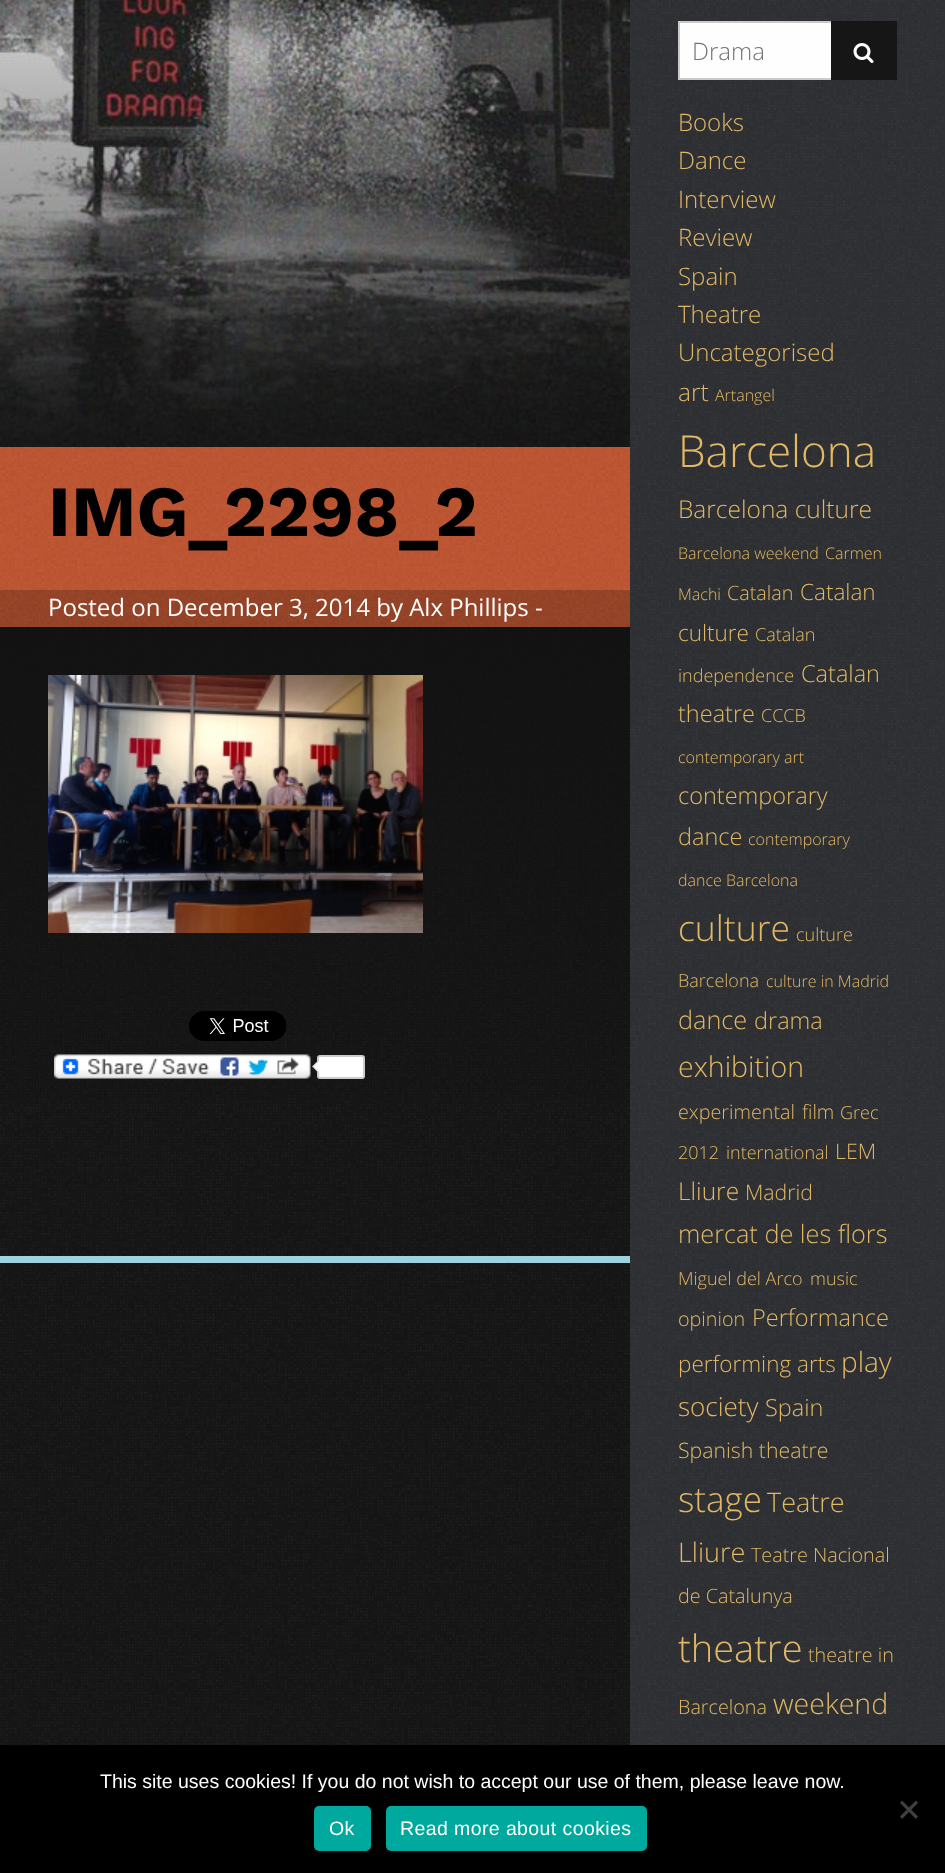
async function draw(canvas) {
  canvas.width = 945;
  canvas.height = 1873;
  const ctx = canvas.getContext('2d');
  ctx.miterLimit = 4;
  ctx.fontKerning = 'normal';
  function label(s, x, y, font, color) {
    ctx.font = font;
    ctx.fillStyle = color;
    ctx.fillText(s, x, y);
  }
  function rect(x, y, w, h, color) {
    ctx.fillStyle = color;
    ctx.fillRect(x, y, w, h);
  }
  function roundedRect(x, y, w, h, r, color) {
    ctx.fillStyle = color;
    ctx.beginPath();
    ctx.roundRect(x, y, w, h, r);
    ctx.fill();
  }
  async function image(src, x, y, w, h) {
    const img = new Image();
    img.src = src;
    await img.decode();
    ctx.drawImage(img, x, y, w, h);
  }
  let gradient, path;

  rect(0, 0, 945, 1873, '#161616');
  await image('assets/img1.png', 0, 1209, 629, 536);
  await image('assets/img2.png', 0, 0, 630, 447);
  rect(0, 1256, 630, 7, '#9dd3df');
  await image('assets/img3.png', 0, 627, 629, 580);
  gradient = ctx.createLinearGradient(315, 447, 315, 1208);
  gradient.addColorStop(0, '#111');
  gradient.addColorStop(1, '#11111100');
  ctx.fillStyle = gradient;
  ctx.fillRect(0, 627, 630, 472);
  rect(0, 447, 630, 143, '#bd5532');
  await image('assets/img4.png', 0, 447, 629, 143);
  label('IMG_2298_2', 48, 536, 'bold 72px Work Sans', '#000');
  rect(0, 590, 630, 37, '#954327');
  await image('assets/img5.png', 0, 589, 629, 38);
  label('Posted on December 3, 2014 by Alx Phillips -', 48, 616, '24px Open Sans', '#fff');
  await image('assets/img6.png', 48, 675, 375, 258);
  await image('assets/img7.png', 189, 1011, 98, 30);
  await image('assets/img8.png', 54, 1054, 257, 25);
  ctx.beginPath();
  ctx.roundRect(318, 1056, 46, 22, 2);
  ctx.fill();
  ctx.strokeStyle = '#ccc';
  ctx.lineWidth = 2;
  ctx.stroke();
  ctx.fillStyle = '#ccc';
  path = new Path2D('M318 1060.5V1072.5L312 1066.5Z');
  ctx.fill(path);
  ctx.fillStyle = '#fff';
  path = new Path2D('M319.5 1060.5V1072.5L313.5 1066.5Z');
  ctx.fill(path);
  rect(630, 0, 315, 1745, '#2f3033');
  await image('assets/img9.png', 630, 0, 314, 1745);
  rect(680, 23, 151, 55, '#fefefe');
  ctx.strokeStyle = '#cacaca';
  ctx.strokeRect(679, 22, 217, 57);
  label('Drama', 692, 60, '300 24px Open Sans', '#757575');
  rect(831, 21, 66, 59, '#161616');
  await image('assets/img10.png', 853, 43, 21, 20);
  label('Books', 678, 131, '300 24px Open Sans', '#e1b866');
  label('Dance', 678, 169, '300 24px Open Sans', '#e1b866');
  label('Interview', 678, 208, '300 24px Open Sans', '#e1b866');
  label('Review', 678, 246, '300 24px Open Sans', '#e1b866');
  label('Spain', 678, 285, '300 24px Open Sans', '#e1b866');
  label('Theatre', 678, 323, '300 24px Open Sans', '#e1b866');
  label('Uncategorised', 678, 361, '300 24px Open Sans', '#e1b866');
  label('art', 678, 401, '300 24.5px Open Sans', '#e1b866');
  label('Artangel', 715, 401, '300 16px Open Sans', '#e1b866');
  label('Barcelona', 678, 467, '300 44px Open Sans', '#e1b866');
  label('Barcelona culture', 678, 518, '300 24.5px Open Sans', '#e1b866');
  label('Barcelona weekend', 678, 559, '300 16px Open Sans', '#e1b866');
  label('Carmen', 825, 559, '300 16px Open Sans', '#e1b866');
  label('Machi', 678, 600, '300 16px Open Sans', '#e1b866');
  label('Catalan', 727, 600, '300 19.75px Open Sans', '#e1b866');
  label('Catalan', 800, 600, '300 22.5px Open Sans', '#e1b866');
  label('culture', 678, 641, '300 22.5px Open Sans', '#e1b866');
  label('Catalan', 755, 641, '300 18px Open Sans', '#e1b866');
  label('independence', 678, 682, '300 18px Open Sans', '#e1b866');
  label('Catalan', 801, 682, '300 23.5px Open Sans', '#e1b866');
  label('theatre', 678, 722, '300 23.5px Open Sans', '#e1b866');
  label('CCCB', 761, 722, '300 18px Open Sans', '#e1b866');
  label('contemporary art', 678, 763, '300 16px Open Sans', '#e1b866');
  label('contemporary', 678, 804, '300 23.5px Open Sans', '#e1b866');
  label('dance', 678, 845, '300 23.5px Open Sans', '#e1b866');
  label('contemporary', 748, 845, '300 16px Open Sans', '#e1b866');
  label('dance Barcelona', 678, 886, '300 16px Open Sans', '#e1b866');
  label('culture', 678, 941, '300 35.5px Open Sans', '#e1b866');
  label('culture', 796, 941, '300 18px Open Sans', '#e1b866');
  label('Barcelona', 678, 987, '300 18px Open Sans', '#e1b866');
  label('culture in Madrid', 766, 987, '300 16px Open Sans', '#e1b866');
  label('dance', 678, 1029, '300 25.25px Open Sans', '#e1b866');
  label('drama', 754, 1029, '300 23.5px Open Sans', '#e1b866');
  label('exhibition', 678, 1077, '300 28.5px Open Sans', '#e1b866');
  label('experimental', 678, 1119, '300 19.75px Open Sans', '#e1b866');
  label('film', 802, 1119, '300 19.75px Open Sans', '#e1b866');
  label('Grec', 840, 1119, '300 18px Open Sans', '#e1b866');
  label('2012', 678, 1159, '300 18px Open Sans', '#e1b866');
  label('international', 726, 1159, '300 18px Open Sans', '#e1b866');
  label('LEM', 835, 1159, '300 21.25px Open Sans', '#e1b866');
  label('Lliure', 678, 1200, '300 24.5px Open Sans', '#e1b866');
  label('Madrid', 745, 1200, '300 21.25px Open Sans', '#e1b866');
  label('mercat de les flors', 678, 1243, '300 25.25px Open Sans', '#e1b866');
  label('Miguel del Arco', 678, 1285, '300 18px Open Sans', '#e1b866');
  label('music', 810, 1285, '300 18px Open Sans', '#e1b866');
  label('opinion', 678, 1326, '300 19.75px Open Sans', '#e1b866');
  label('Performance', 752, 1326, '300 23.5px Open Sans', '#e1b866');
  label('performing arts', 678, 1372, '300 22.5px Open Sans', '#e1b866');
  label('play', 841, 1372, '300 28px Open Sans', '#e1b866');
  label('society', 678, 1416, '300 26px Open Sans', '#e1b866');
  label('Spain', 765, 1416, '300 23.5px Open Sans', '#e1b866');
  label('Spanish theatre', 678, 1458, '300 21.25px Open Sans', '#e1b866');
  label('stage', 678, 1512, '300 35px Open Sans', '#e1b866');
  label('Teatre', 767, 1512, '300 27px Open Sans', '#e1b866');
  label('Lliure', 678, 1562, '300 27px Open Sans', '#e1b866');
  label('Teatre Nacional', 751, 1562, '300 19.75px Open Sans', '#e1b866');
  label('de Catalunya', 678, 1603, '300 19.75px Open Sans', '#e1b866');
  label('theatre', 678, 1662, '300 38px Open Sans', '#e1b866');
  label('theatre in', 808, 1662, '300 19.75px Open Sans', '#e1b866');
  label('Barcelona', 678, 1714, '300 19.75px Open Sans', '#e1b866');
  label('weekend', 773, 1714, '300 28.5px Open Sans', '#e1b866');
  rect(0, 1745, 945, 128, '#000');
  label('This site uses cookies! If you do not wish to accept our use of them, please leave now.', 100, 1788, '19.5px Liberation Sans', '#fff');
  ctx.fillStyle = '#404040';
  path = new Path2D('M916 1800.5L918 1803L902 1819L900 1816.5Z');
  ctx.fill(path);
  path = new Path2D('M900 1803L902 1800.5L918 1816.5L916 1819Z');
  ctx.fill(path);
  roundedRect(314, 1806, 57, 45, 5, '#00a99d');
  ctx.letterSpacing = '0.4px';
  label('Ok', 329, 1835, '19.5px Liberation Sans', '#fff');
  roundedRect(386, 1806, 261, 45, 5, '#00a99d');
  label('Read more about cookies', 400, 1835, '19.5px Liberation Sans', '#fff');
}

draw(document.querySelector('canvas'));
